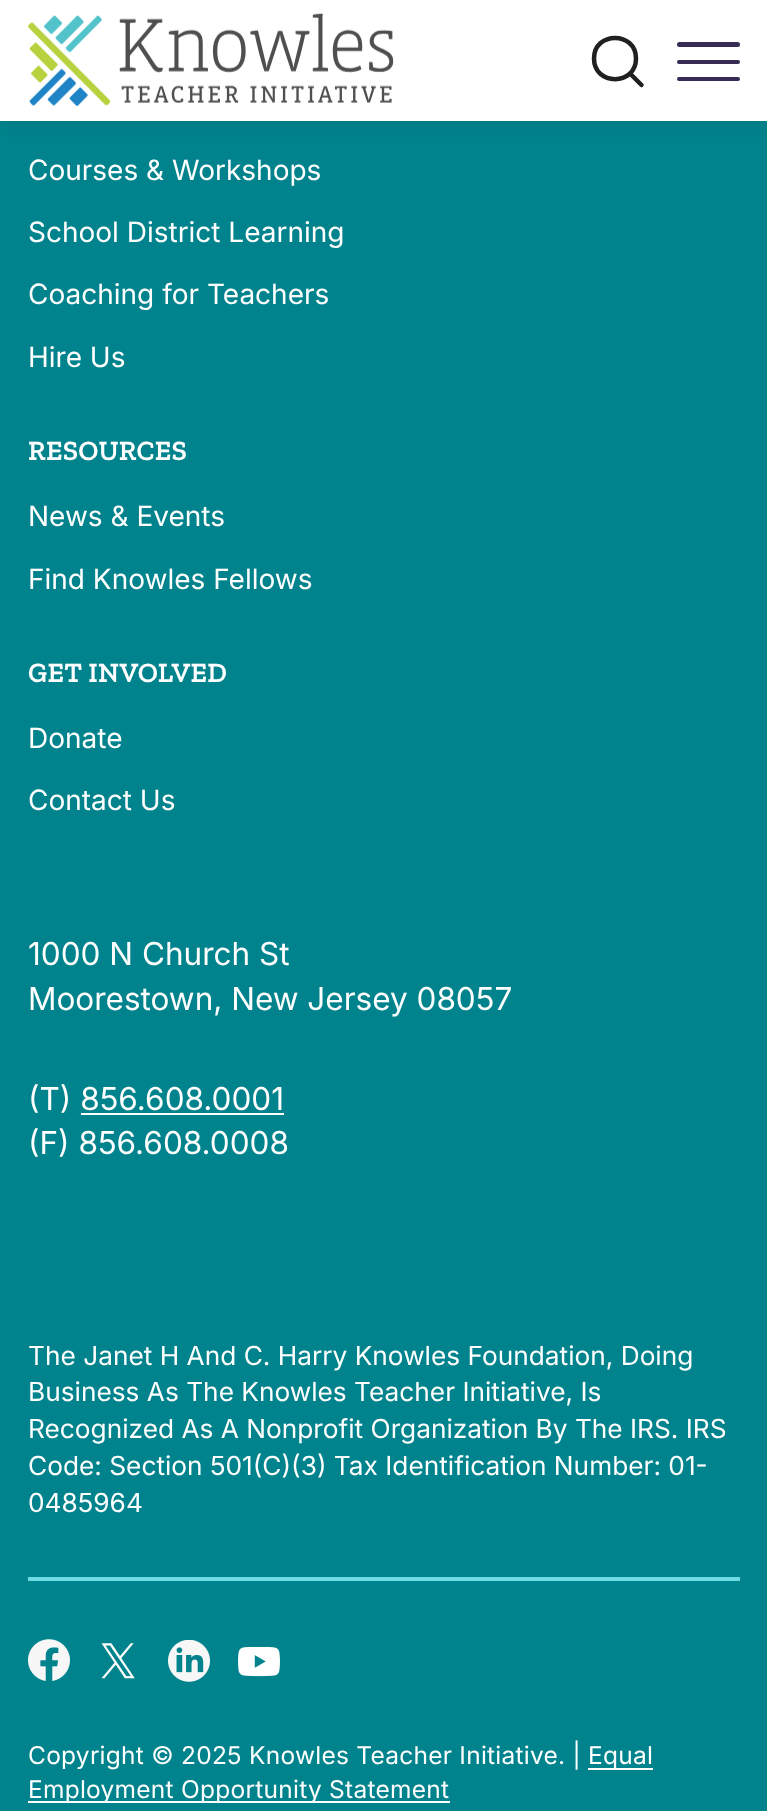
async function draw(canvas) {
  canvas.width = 767;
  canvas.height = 1811;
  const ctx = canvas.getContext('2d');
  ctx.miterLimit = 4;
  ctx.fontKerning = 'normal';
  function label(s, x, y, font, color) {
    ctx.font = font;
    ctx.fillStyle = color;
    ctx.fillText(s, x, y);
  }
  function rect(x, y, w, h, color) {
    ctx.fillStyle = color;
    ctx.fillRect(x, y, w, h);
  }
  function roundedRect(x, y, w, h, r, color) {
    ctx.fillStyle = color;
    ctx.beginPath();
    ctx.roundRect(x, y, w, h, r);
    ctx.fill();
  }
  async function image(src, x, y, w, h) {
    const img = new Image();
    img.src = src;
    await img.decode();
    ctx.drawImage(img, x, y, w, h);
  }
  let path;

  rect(0, 0, 767, 1811, '#fff');
  ctx.fillStyle = '#00838c';
  path = new Path2D('M0-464L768-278V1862H0Z');
  ctx.fill(path);
  ctx.fillStyle = '#1018281a';
  ctx.filter = 'blur(7px)';
  ctx.beginPath();
  ctx.rect(4, 11, 761, 113);
  ctx.fill();
  ctx.filter = 'none';
  rect(0, 0, 767, 121, '#fff');
  await image('assets/img1.png', 28, 13, 366, 93);
  path = new Path2D('M641.5 85L630 73.5M636 58.5C636 86 594 86 594 58.5C594 31 636 31 636 58.5Z');
  ctx.strokeStyle = '#202020';
  ctx.lineWidth = 4.5;
  ctx.lineCap = 'round';
  ctx.lineJoin = 'round';
  ctx.stroke(path);
  roundedRect(677, 42, 63, 5, 2.5, '#362b52');
  roundedRect(677, 60, 63, 4, 2, '#362b52');
  roundedRect(677, 77, 63, 4, 2, '#362b52');
  label('Courses & Workshops', 28, 180, '28px Inter', '#fff');
  label('School District Learning', 28, 242, '28px Inter', '#fff');
  label('Coaching for Teachers', 28, 304, '28px Inter', '#fff');
  label('Hire Us', 28, 367, '28px Inter', '#fff');
  ctx.letterSpacing = '0.25px';
  label('RESOURCES', 28, 460, '600 28px Zilla Slab', '#fff');
  ctx.letterSpacing = '0px';
  label('News & Events', 28, 526, '28px Inter', '#fff');
  label('Find Knowles Fellows', 28, 589, '28px Inter', '#fff');
  ctx.letterSpacing = '0.25px';
  label('GET INVOLVED', 28, 682, '600 28px Zilla Slab', '#fff');
  ctx.letterSpacing = '0px';
  label('Donate', 28, 748, '28px Inter', '#fff');
  label('Contact Us', 28, 810, '28px Inter', '#fff');
  label('1000 N Church St', 28, 965, '31.5px Inter', '#fff');
  label('Moorestown, New Jersey 08057', 28, 1010, '31.5px Inter', '#fff');
  label('(T) 856.608.0001', 28, 1110, '31.5px Inter', '#fff');
  rect(81, 1113, 203, 2, '#fff');
  label('(F) 856.608.0008', 28, 1154, '31.5px Inter', '#fff');
  label('The Janet H And C. Harry Knowles Foundation, Doing', 28, 1365, '26.25px Inter', '#fff');
  label('Business As The Knowles Teacher Initiative, Is', 28, 1401, '26.25px Inter', '#fff');
  label('Recognized As A Nonprofit Organization By The IRS. IRS', 28, 1438, '26.25px Inter', '#fff');
  label('Code: Section 501(C)(3) Tax Identification Number: 01-', 28, 1475, '26.25px Inter', '#fff');
  label('0485964', 28, 1512, '26.25px Inter', '#fff');
  rect(28, 1577, 712, 4, '#6ddbe3');
  await image('assets/img2.png', 28, 1639, 42, 42);
  await image('assets/img3.png', 101, 1643, 34, 36);
  await image('assets/img4.png', 168, 1640, 42, 42);
  await image('assets/img5.png', 238, 1647, 42, 30);
  ctx.letterSpacing = '0.25px';
  label('Copyright © 2025 Knowles Teacher Initiative. |', 28, 1764, '24.5px Inter', '#fff');
  rect(588, 1768, 65, 2, '#fff');
  label('Equal', 588, 1764, '24.5px Inter', '#fff');
  rect(28, 1801, 422, 2, '#fff');
  label('Employment Opportunity Statement', 28, 1798, '24.5px Inter', '#fff');
}

draw(document.querySelector('canvas'));
